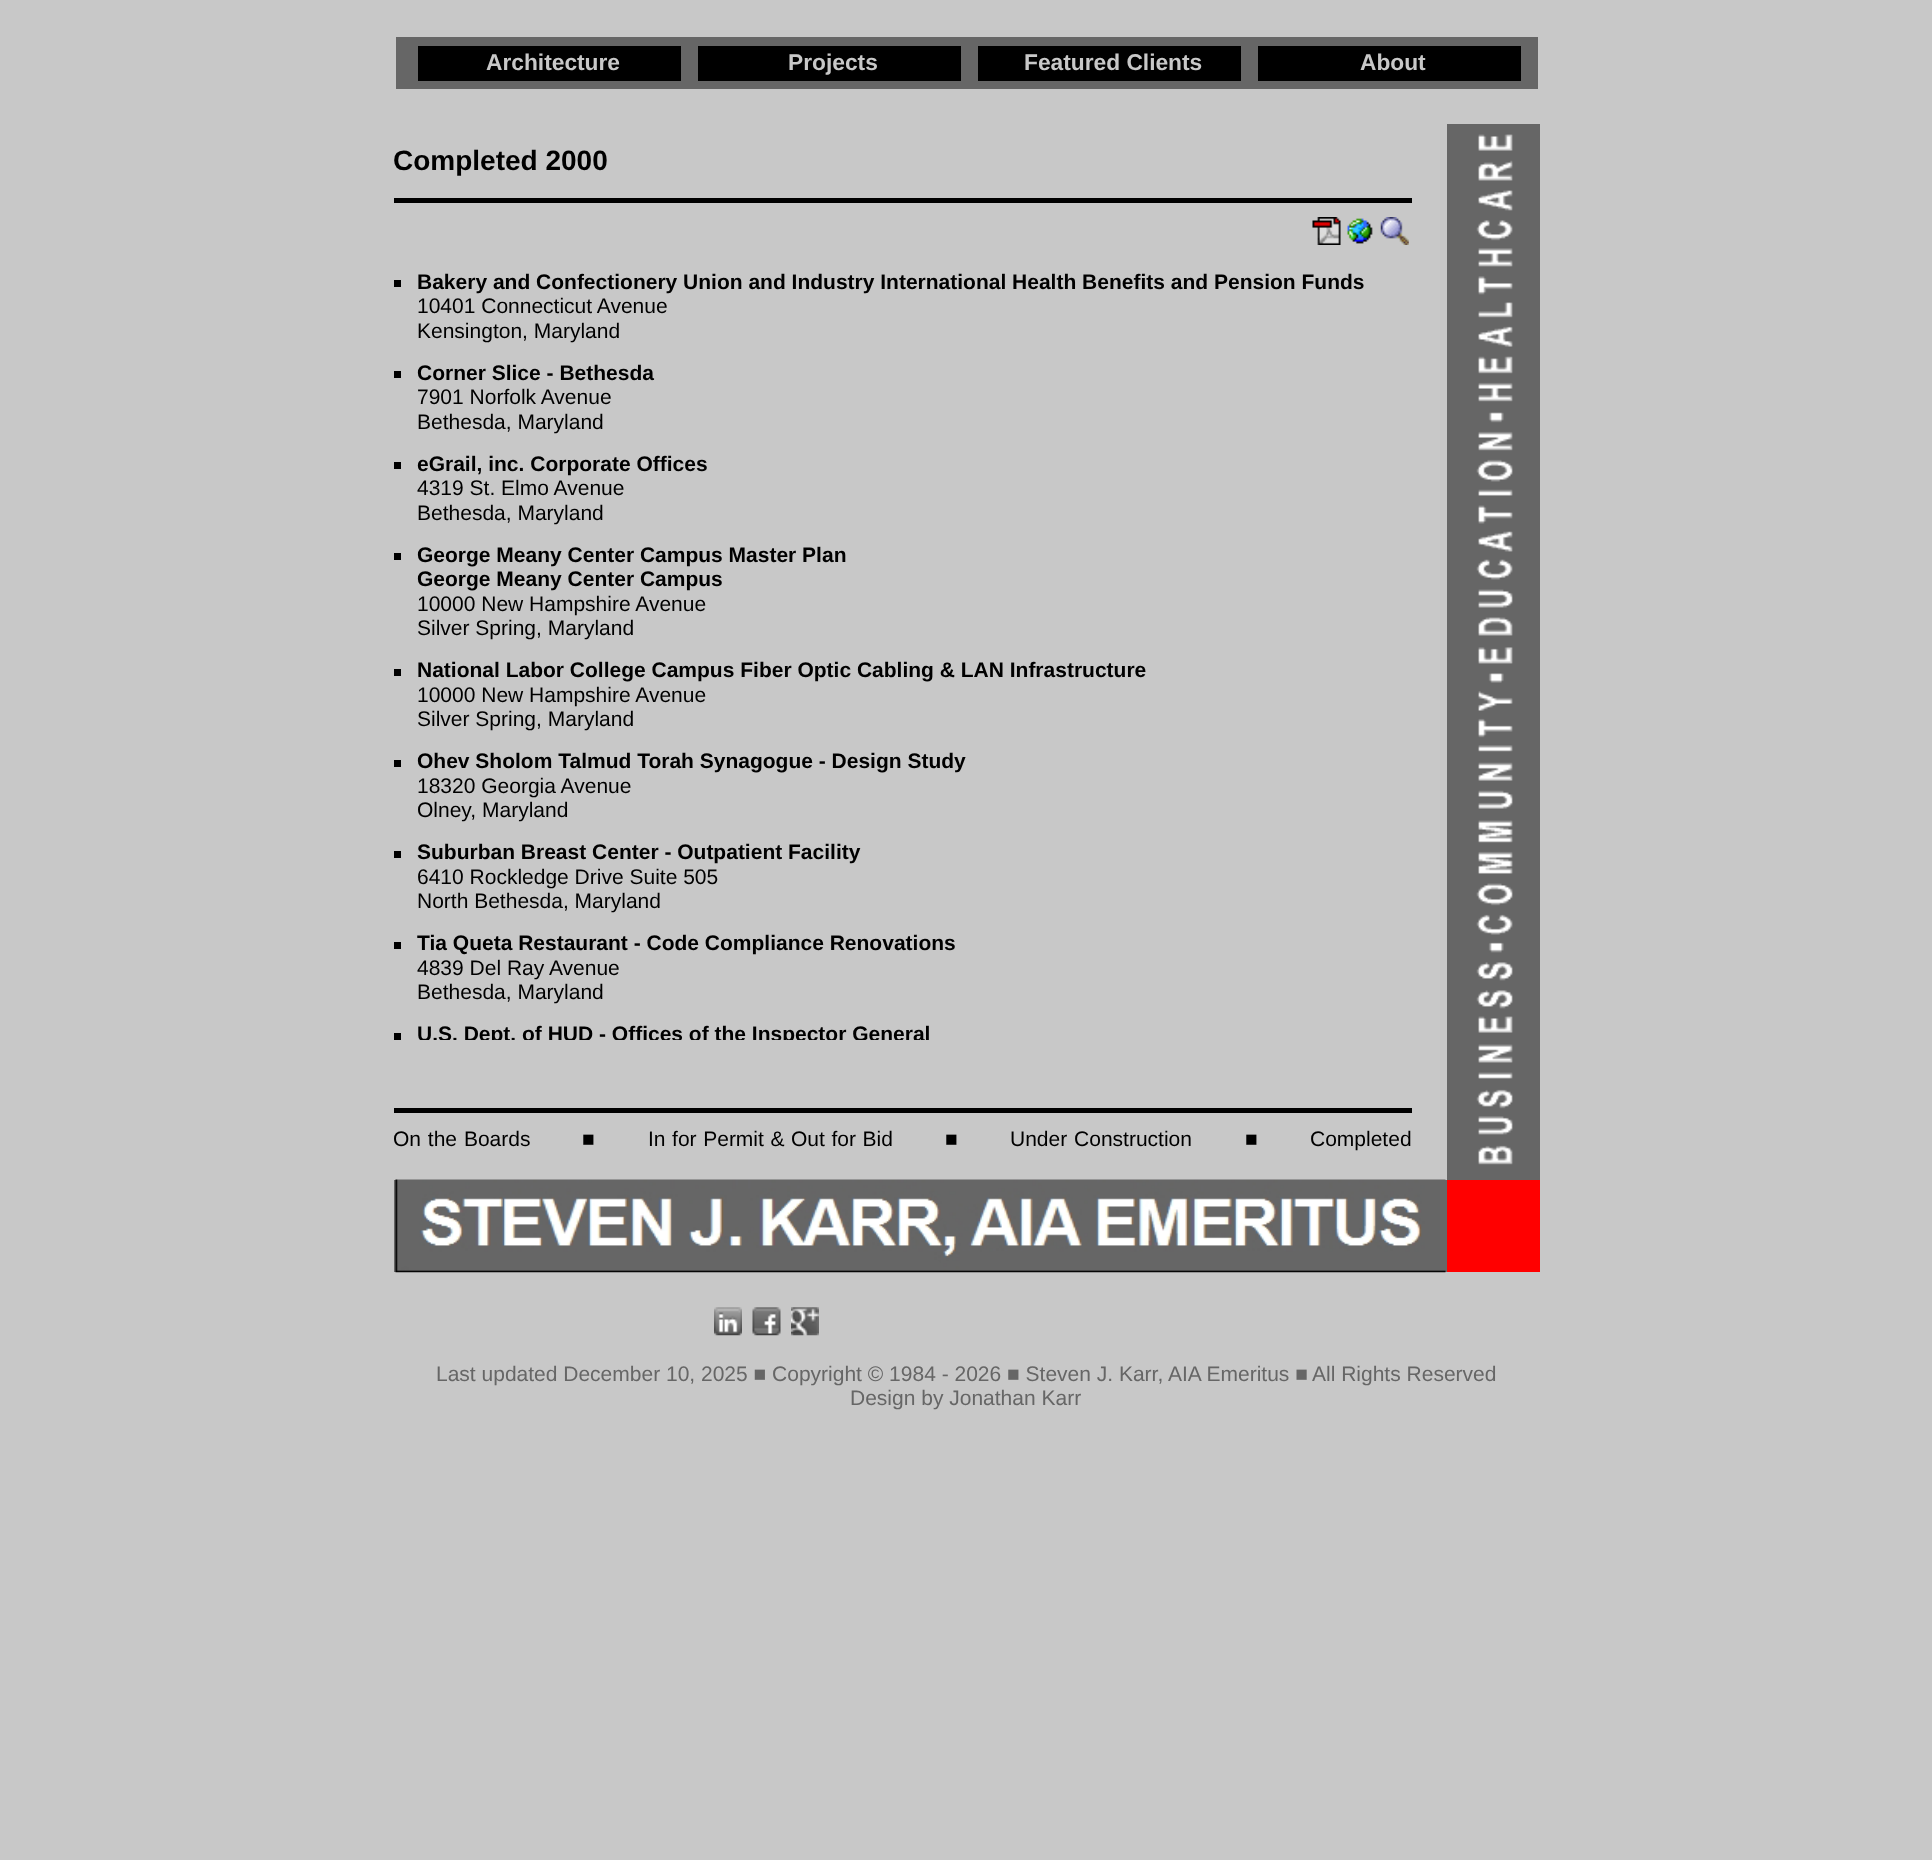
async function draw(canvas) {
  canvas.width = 1932;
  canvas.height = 1860;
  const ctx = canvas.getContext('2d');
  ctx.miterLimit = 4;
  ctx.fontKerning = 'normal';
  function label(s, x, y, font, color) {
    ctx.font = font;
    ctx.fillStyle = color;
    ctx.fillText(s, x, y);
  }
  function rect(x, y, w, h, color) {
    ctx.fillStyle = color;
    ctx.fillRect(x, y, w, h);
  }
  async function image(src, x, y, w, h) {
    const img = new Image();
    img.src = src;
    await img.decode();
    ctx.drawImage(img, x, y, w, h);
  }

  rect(0, 0, 1932, 1860, '#c8c8c8');
  rect(396, 37, 1142, 52, '#666');
  rect(418, 46, 263, 35, '#000');
  label('Architecture', 486, 70, 'bold 22.75px Liberation Sans', '#c8c8c8');
  rect(698, 46, 263, 35, '#000');
  label('Projects', 788, 70, 'bold 22.75px Liberation Sans', '#c8c8c8');
  rect(978, 46, 263, 35, '#000');
  label('Featured Clients', 1024, 70, 'bold 22.75px Liberation Sans', '#c8c8c8');
  rect(1258, 46, 263, 35, '#000');
  label('About', 1360, 70, 'bold 22.75px Liberation Sans', '#c8c8c8');
  label('Completed 2000', 393, 170, 'bold 28px Liberation Sans', '#000');
  rect(394, 198, 1018, 5, '#000');
  await image('assets/img1.png', 1312, 217, 29, 28);
  await image('assets/img2.png', 1347, 218, 26, 26);
  await image('assets/img3.png', 1380, 217, 29, 28);
  rect(394, 280, 7, 7, '#000');
  label('Bakery and Confectionery Union and Industry International Health Benefits and Pension Funds', 417, 289, 'bold 21px Liberation Sans', '#000');
  label('10401 Connecticut Avenue', 417, 313, '21px Liberation Sans', '#000');
  label('Kensington, Maryland', 417, 338, '21px Liberation Sans', '#000');
  rect(394, 371, 7, 7, '#000');
  label('Corner Slice - Bethesda', 417, 380, 'bold 21px Liberation Sans', '#000');
  label('7901 Norfolk Avenue', 417, 404, '21px Liberation Sans', '#000');
  label('Bethesda, Maryland', 417, 429, '21px Liberation Sans', '#000');
  rect(394, 462, 7, 7, '#000');
  label('eGrail, inc. Corporate Offices', 417, 471, 'bold 21px Liberation Sans', '#000');
  label('4319 St. Elmo Avenue', 417, 495, '21px Liberation Sans', '#000');
  label('Bethesda, Maryland', 417, 520, '21px Liberation Sans', '#000');
  rect(394, 553, 7, 7, '#000');
  label('George Meany Center Campus Master Plan', 417, 562, 'bold 21px Liberation Sans', '#000');
  label('George Meany Center Campus', 417, 586, 'bold 21px Liberation Sans', '#000');
  label('10000 New Hampshire Avenue', 417, 611, '21px Liberation Sans', '#000');
  label('Silver Spring, Maryland', 417, 635, '21px Liberation Sans', '#000');
  rect(394, 669, 7, 7, '#000');
  label('National Labor College Campus Fiber Optic Cabling & LAN Infrastructure', 417, 677, 'bold 21px Liberation Sans', '#000');
  label('10000 New Hampshire Avenue', 417, 702, '21px Liberation Sans', '#000');
  label('Silver Spring, Maryland', 417, 726, '21px Liberation Sans', '#000');
  rect(394, 760, 7, 7, '#000');
  label('Ohev Sholom Talmud Torah Synagogue - Design Study', 417, 768, 'bold 21px Liberation Sans', '#000');
  label('18320 Georgia Avenue', 417, 793, '21px Liberation Sans', '#000');
  label('Olney, Maryland', 417, 817, '21px Liberation Sans', '#000');
  rect(394, 851, 7, 7, '#000');
  label('Suburban Breast Center - Outpatient Facility', 417, 859, 'bold 21px Liberation Sans', '#000');
  label('6410 Rockledge Drive Suite 505', 417, 884, '21px Liberation Sans', '#000');
  label('North Bethesda, Maryland', 417, 908, '21px Liberation Sans', '#000');
  rect(394, 942, 7, 7, '#000');
  label('Tia Queta Restaurant - Code Compliance Renovations', 417, 950, 'bold 21px Liberation Sans', '#000');
  label('4839 Del Ray Avenue', 417, 975, '21px Liberation Sans', '#000');
  label('Bethesda, Maryland', 417, 999, '21px Liberation Sans', '#000');
  rect(394, 1033, 7, 7, '#000');
  ctx.save();
  ctx.beginPath();
  ctx.rect(394, 270, 1050, 770);
  ctx.clip();
  label('U.S. Dept. of HUD - Offices of the Inspector General', 417, 1041, 'bold 21px Liberation Sans', '#000');
  ctx.restore();
  rect(394, 1108, 1018, 5, '#000');
  ctx.wordSpacing = '1px';
  label('On the Boards', 393, 1146, '21px Liberation Sans', '#000');
  ctx.wordSpacing = '0px';
  label('■', 582, 1146, '21px Liberation Sans', '#000');
  ctx.wordSpacing = '0.75px';
  label('In for Permit & Out for Bid', 648, 1146, '21px Liberation Sans', '#000');
  ctx.wordSpacing = '0px';
  label('■', 945, 1146, '21px Liberation Sans', '#000');
  ctx.wordSpacing = '1px';
  label('Under Construction', 1010, 1146, '21px Liberation Sans', '#000');
  ctx.wordSpacing = '0px';
  label('■', 1245, 1146, '21px Liberation Sans', '#000');
  label('Completed', 1310, 1146, '21px Liberation Sans', '#000');
  rect(1447, 124, 93, 1056, '#666');
  await image('assets/img4.png', 1476, 134, 37, 1031);
  rect(394, 1180, 1053, 92, '#666');
  await image('assets/img5.png', 395, 1179, 1051, 94);
  rect(1447, 1180, 93, 92, '#f00');
  await image('assets/img6.png', 714, 1307, 28, 29);
  await image('assets/img7.png', 752, 1307, 29, 29);
  await image('assets/img8.png', 791, 1307, 28, 29);
  label('Last updated December 10, 2025 ■ Copyright © 1984 - 2026 ■ Steven J. Karr, AIA Emeritus ■', 436, 1381, '21px Liberation Sans', '#666');
  label('All Rights Reserved', 1312, 1381, '21px Liberation Sans', '#666');
  label('Design by Jonathan Karr', 850, 1405, '21px Liberation Sans', '#666');
}

draw(document.querySelector('canvas'));
